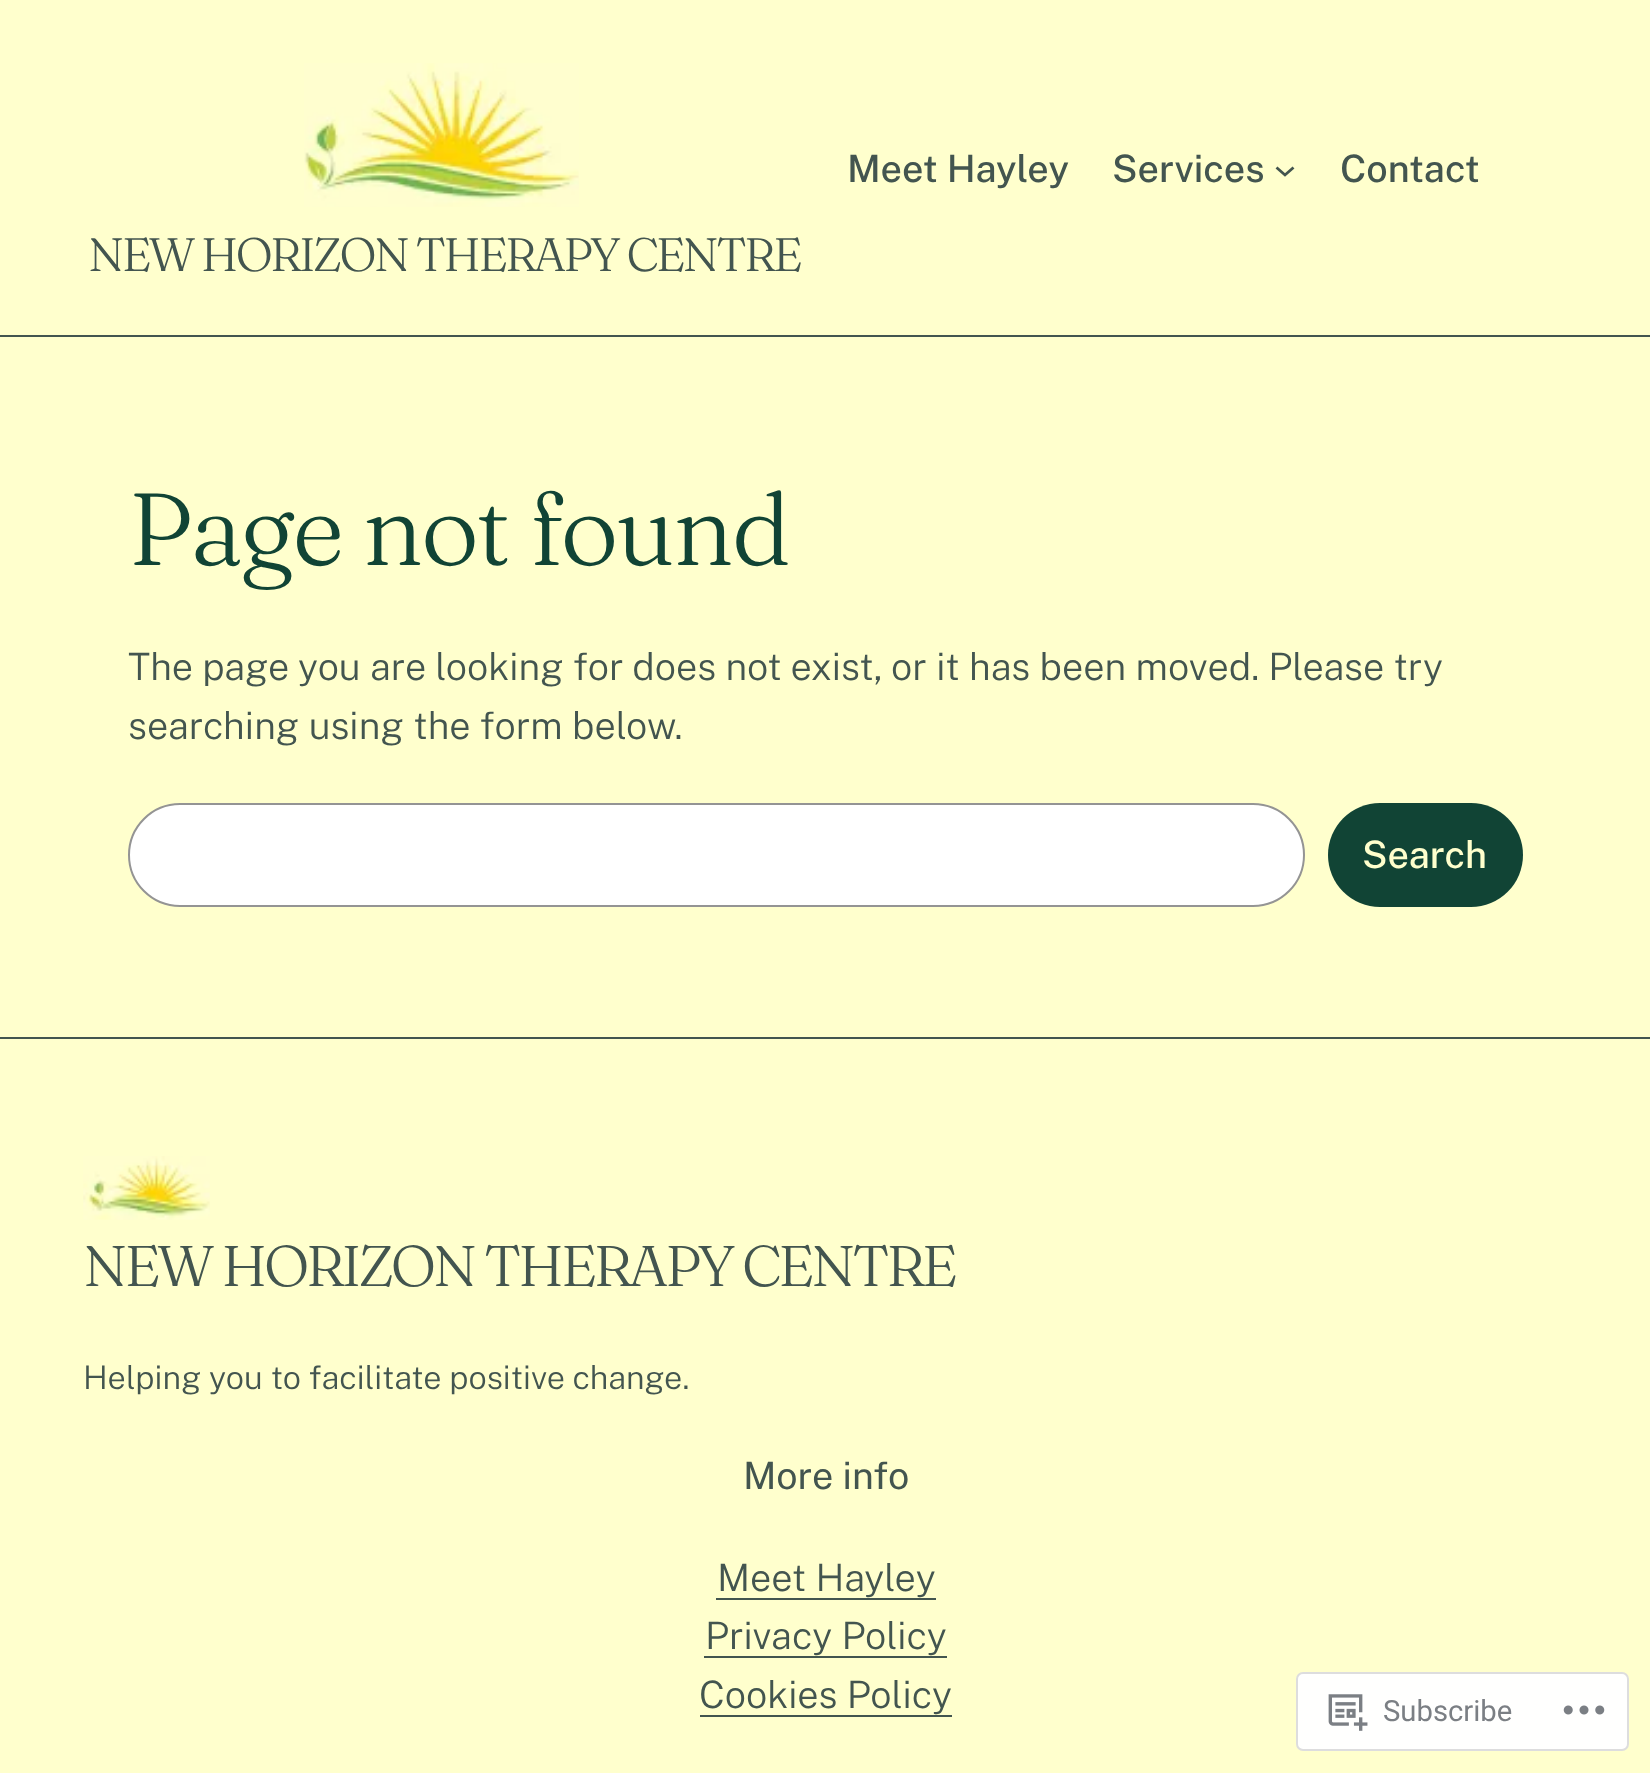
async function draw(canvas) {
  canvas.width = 1650;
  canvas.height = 1773;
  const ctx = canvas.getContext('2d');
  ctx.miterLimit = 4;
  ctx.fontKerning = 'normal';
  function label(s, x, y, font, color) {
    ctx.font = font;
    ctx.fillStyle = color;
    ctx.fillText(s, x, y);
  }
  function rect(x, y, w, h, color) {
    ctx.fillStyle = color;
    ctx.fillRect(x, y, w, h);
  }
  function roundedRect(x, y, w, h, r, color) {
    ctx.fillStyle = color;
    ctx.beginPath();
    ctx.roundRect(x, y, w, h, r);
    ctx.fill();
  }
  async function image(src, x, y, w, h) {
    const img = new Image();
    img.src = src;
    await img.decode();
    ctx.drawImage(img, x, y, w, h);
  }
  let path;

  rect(0, 0, 1650, 1773, '#ffffcd');
  rect(0, 335, 1650, 2, '#43554f');
  label('Meet Hayley', 847, 182, '500 37.8px Public Sans', '#43554f');
  label('Services', 1112, 182, '500 37.8px Public Sans', '#43554f');
  path = new Path2D('M1276.5 167.5L1285 175L1293.5 167.5');
  ctx.strokeStyle = '#43554f';
  ctx.lineWidth = 2.8;
  ctx.stroke(path);
  label('Contact', 1340, 182, '500 37.8px Public Sans', '#43554f');
  await image('assets/img1.png', 304, 63, 275, 144);
  ctx.letterSpacing = '-2.8px';
  label('NEW HORIZON THERAPY CENTRE', 88, 271, '300 46.75px Fraunces', '#43554f');
  ctx.letterSpacing = '-3px';
  label('Page not found', 128, 565, '300 102px Fraunces', '#114435');
  ctx.letterSpacing = '0px';
  label('The page you are looking for does not exist, or it has been moved. Please try', 128, 680, '300 37.8px Public Sans', '#43554f');
  label('searching using the form below.', 128, 739, '300 37.8px Public Sans', '#43554f');
  ctx.fillStyle = '#fff';
  ctx.beginPath();
  ctx.roundRect(129, 804, 1175, 102, 51);
  ctx.fill();
  ctx.strokeStyle = '#949494';
  ctx.lineWidth = 2;
  ctx.stroke();
  roundedRect(1328, 803, 195, 104, 52, '#114435');
  label('Search', 1362, 868, '500 37.8px Public Sans', '#ffffcd');
  rect(0, 1037, 1650, 2, '#43554f');
  await image('assets/img2.png', 83, 1156, 127, 64);
  ctx.letterSpacing = '-3.4px';
  label('NEW HORIZON THERAPY CENTRE', 83, 1286, '300 57.2px Fraunces', '#43554f');
  ctx.letterSpacing = '0px';
  label('Helping you to facilitate positive change.', 83, 1389, '300 32.4px Public Sans', '#43554f');
  label('More info', 743, 1489, '37.8px Public Sans', '#43554f');
  label('Meet Hayley', 717, 1591, '300 37.8px Public Sans', '#43554f');
  rect(716, 1598, 220, 2, '#43554f');
  label('Privacy Policy', 705, 1649, '300 37.8px Public Sans', '#43554f');
  rect(704, 1656, 243, 2, '#43554f');
  label('Cookies Policy', 699, 1708, '300 37.8px Public Sans', '#43554f');
  rect(700, 1715, 252, 2, '#43554f');
  ctx.fillStyle = '#fffffe';
  ctx.beginPath();
  ctx.roundRect(1297, 1673, 331, 77, 6);
  ctx.fill();
  ctx.strokeStyle = '#ddddde';
  ctx.stroke();
  await image('assets/img3.png', 1328, 1694, 40, 37);
  label('Subscribe', 1383, 1721, '29.25px Roboto', '#7b7f84');
  await image('assets/img4.png', 1563, 1705, 42, 10);
}

draw(document.querySelector('canvas'));
